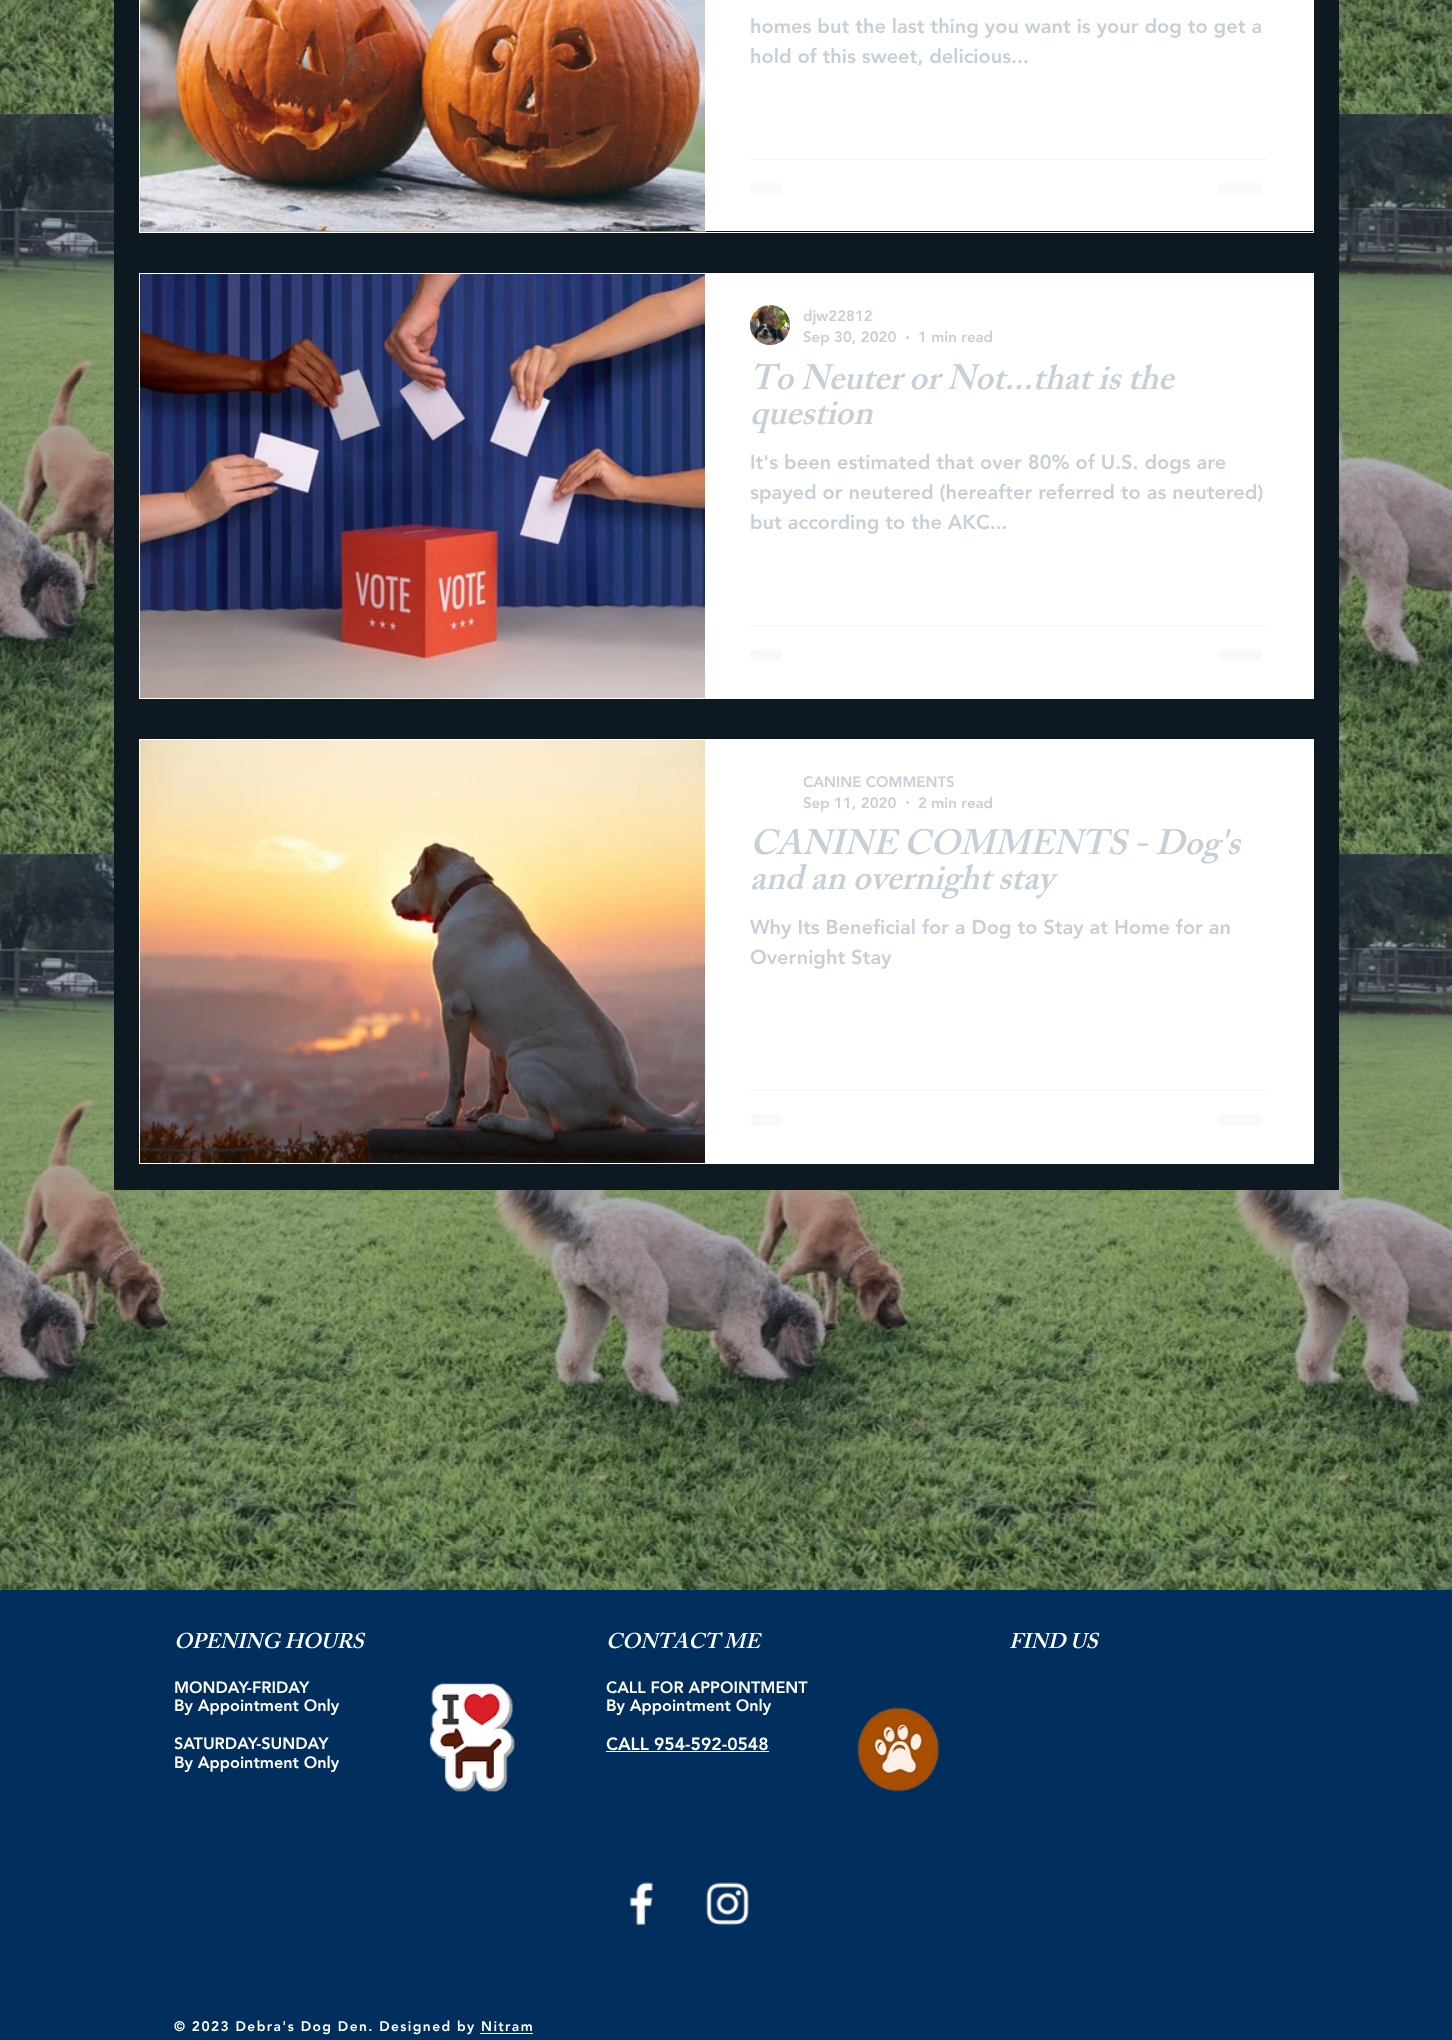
async function draw(canvas) {
  canvas.width = 1452;
  canvas.height = 2040;
  const ctx = canvas.getContext('2d');
  ctx.miterLimit = 4;
  ctx.fontKerning = 'normal';
  function label(s, x, y, font, color) {
    ctx.font = font;
    ctx.fillStyle = color;
    ctx.fillText(s, x, y);
  }
  function rect(x, y, w, h, color) {
    ctx.fillStyle = color;
    ctx.fillRect(x, y, w, h);
  }
  function roundedRect(x, y, w, h, r, color) {
    ctx.fillStyle = color;
    ctx.beginPath();
    ctx.roundRect(x, y, w, h, r);
    ctx.fill();
  }
  async function image(src, x, y, w, h) {
    const img = new Image();
    img.src = src;
    await img.decode();
    ctx.drawImage(img, x, y, w, h);
  }

  rect(0, 0, 1452, 2040, '#0e1821');
  await image('assets/img1.png', 0, 0, 1452, 1590);
  rect(114, 0, 1225, 1190, '#0e1821');
  ctx.strokeStyle = '#fff';
  ctx.strokeRect(139.5, -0.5, 1174, 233);
  await image('assets/img2.png', 140, 0, 565, 231);
  await image('assets/img3.png', 140, 231, 566, 1);
  rect(705, 0, 608, 231, '#fff');
  label('homes but the last thing you want is your dog to get a', 750, 33, '900 20px "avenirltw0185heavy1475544"', '#c5d0d9');
  label('hold of this sweet, delicious...', 750, 63, '900 20px "avenirltw0185heavy1475544"', '#c5d0d9');
  rect(750, 159, 518, 1, '#f3f6f7');
  roundedRect(750, 183, 33, 12, 6, '#f8f9fa');
  roundedRect(1218, 183, 45, 12, 6, '#f8f9fa');
  ctx.strokeRect(139.5, 273.5, 1174, 425);
  await image('assets/img4.png', 140, 274, 565, 424);
  rect(705, 274, 608, 424, '#fff');
  await image('assets/img5.png', 750, 305, 40, 40);
  label('djw22812', 803, 321, '900 15px "avenirltw0185heavy1475544"', '#c5d0d9');
  label('Sep 30, 2020', 803, 342, '900 15px "avenirltw0185heavy1475544"', '#c5d0d9');
  ctx.beginPath();
  ctx.arc(907.5, 337.5, 1.5, 0, 2 * Math.PI);
  ctx.fill();
  label('1 min read', 918, 342, '900 15px "avenirltw0185heavy1475544"', '#c5d0d9');
  label('To Neuter or Not...that is the', 750, 389, 'italic 600 35px "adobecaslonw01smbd"', '#c5d0d9');
  ctx.save();
  ctx.beginPath();
  ctx.rect(750, 363, 518, 70);
  ctx.clip();
  label('question', 750, 424, 'italic 600 35px "adobecaslonw01smbd"', '#c5d0d9');
  ctx.restore();
  label('It\'s been estimated that over 80% of U.S. dogs are', 750, 469, '900 20px "avenirltw0185heavy1475544"', '#c5d0d9');
  label('spayed or neutered (hereafter referred to as neutered)', 750, 499, '900 20px "avenirltw0185heavy1475544"', '#c5d0d9');
  label('but according to the AKC...', 750, 529, '900 20px "avenirltw0185heavy1475544"', '#c5d0d9');
  rect(750, 625, 518, 1, '#f3f6f7');
  roundedRect(750, 649, 33, 12, 6, '#f8f9fa');
  roundedRect(1218, 649, 45, 12, 6, '#f8f9fa');
  ctx.strokeRect(139.5, 739.5, 1174, 424);
  await image('assets/img6.png', 140, 740, 565, 423);
  rect(705, 740, 608, 423, '#fff');
  label('CANINE COMMENTS', 803, 787, '900 15px "avenirltw0185heavy1475544"', '#c5d0d9');
  label('Sep 11, 2020', 803, 808, '900 15px "avenirltw0185heavy1475544"', '#c5d0d9');
  ctx.beginPath();
  ctx.arc(907.5, 802.5, 1.5, 0, 2 * Math.PI);
  ctx.fill();
  label('2 min read', 918, 808, '900 15px "avenirltw0185heavy1475544"', '#c5d0d9');
  ctx.save();
  ctx.beginPath();
  ctx.rect(750, 829, 518, 70);
  ctx.clip();
  label('CANINE COMMENTS - Dog\'s', 750, 854, 'italic 600 35px "adobecaslonw01smbd"', '#c5d0d9');
  ctx.restore();
  label('and an overnight stay', 750, 889, 'italic 600 35px "adobecaslonw01smbd"', '#c5d0d9');
  label('Why Its Beneficial for a Dog to Stay at Home for an', 750, 934, '900 20px "avenirltw0185heavy1475544"', '#c5d0d9');
  label('Overnight Stay', 750, 964, '900 20px "avenirltw0185heavy1475544"', '#c5d0d9');
  rect(750, 1090, 518, 1, '#f3f6f7');
  roundedRect(750, 1114, 33, 12, 6, '#f8f9fa');
  roundedRect(1218, 1114, 45, 12, 6, '#f8f9fa');
  rect(0, 1590, 1452, 450, '#002e5d');
  label('OPENING HOURS', 174, 1648, 'italic 600 21.25px "adobecaslonw01smbd"', '#fff');
  label('MONDAY-FRIDAY', 174, 1693, '900 16.25px "avenirltw0185heavy1475544"', '#fff');
  label('By Appointment Only', 174, 1711, '900 16.25px "avenirltw0185heavy1475544"', '#fff');
  label('SATURDAY-SUNDAY', 174, 1749, '900 16.25px "avenirltw0185heavy1475544"', '#fff');
  label('By Appointment Only', 174, 1768, '900 16.25px "avenirltw0185heavy1475544"', '#fff');
  label('CONTACT ME', 606, 1648, 'italic 600 21.25px "adobecaslonw01smbd"', '#fff');
  label('CALL FOR APPOINTMENT', 606, 1693, '900 16.25px "avenirltw0185heavy1475544"', '#fff');
  label('By Appointment Only', 606, 1711, '900 16.25px "avenirltw0185heavy1475544"', '#fff');
  label('CALL 954-592-0548', 606, 1750, '900 17.5px "avenirltw0185heavy1475544"', '#fff');
  rect(606, 1751, 163, 1, '#fff');
  label('FIND US', 1009, 1648, 'italic 600 21.25px "adobecaslonw01smbd"', '#fff');
  await image('assets/img7.png', 429, 1683, 87, 109);
  await image('assets/img8.png', 857, 1707, 82, 85);
  await image('assets/img9.png', 629, 1882, 24, 44);
  await image('assets/img10.png', 706, 1882, 43, 44);
  ctx.letterSpacing = '1.4px';
  label('© 2023 Debra\'s Dog Den. Designed by Nitram', 174, 2031, '900 13.75px "avenirltw0185heavy1475544"', '#fff');
  rect(480, 2033, 53, 1, '#fff');
}

draw(document.querySelector('canvas'));
